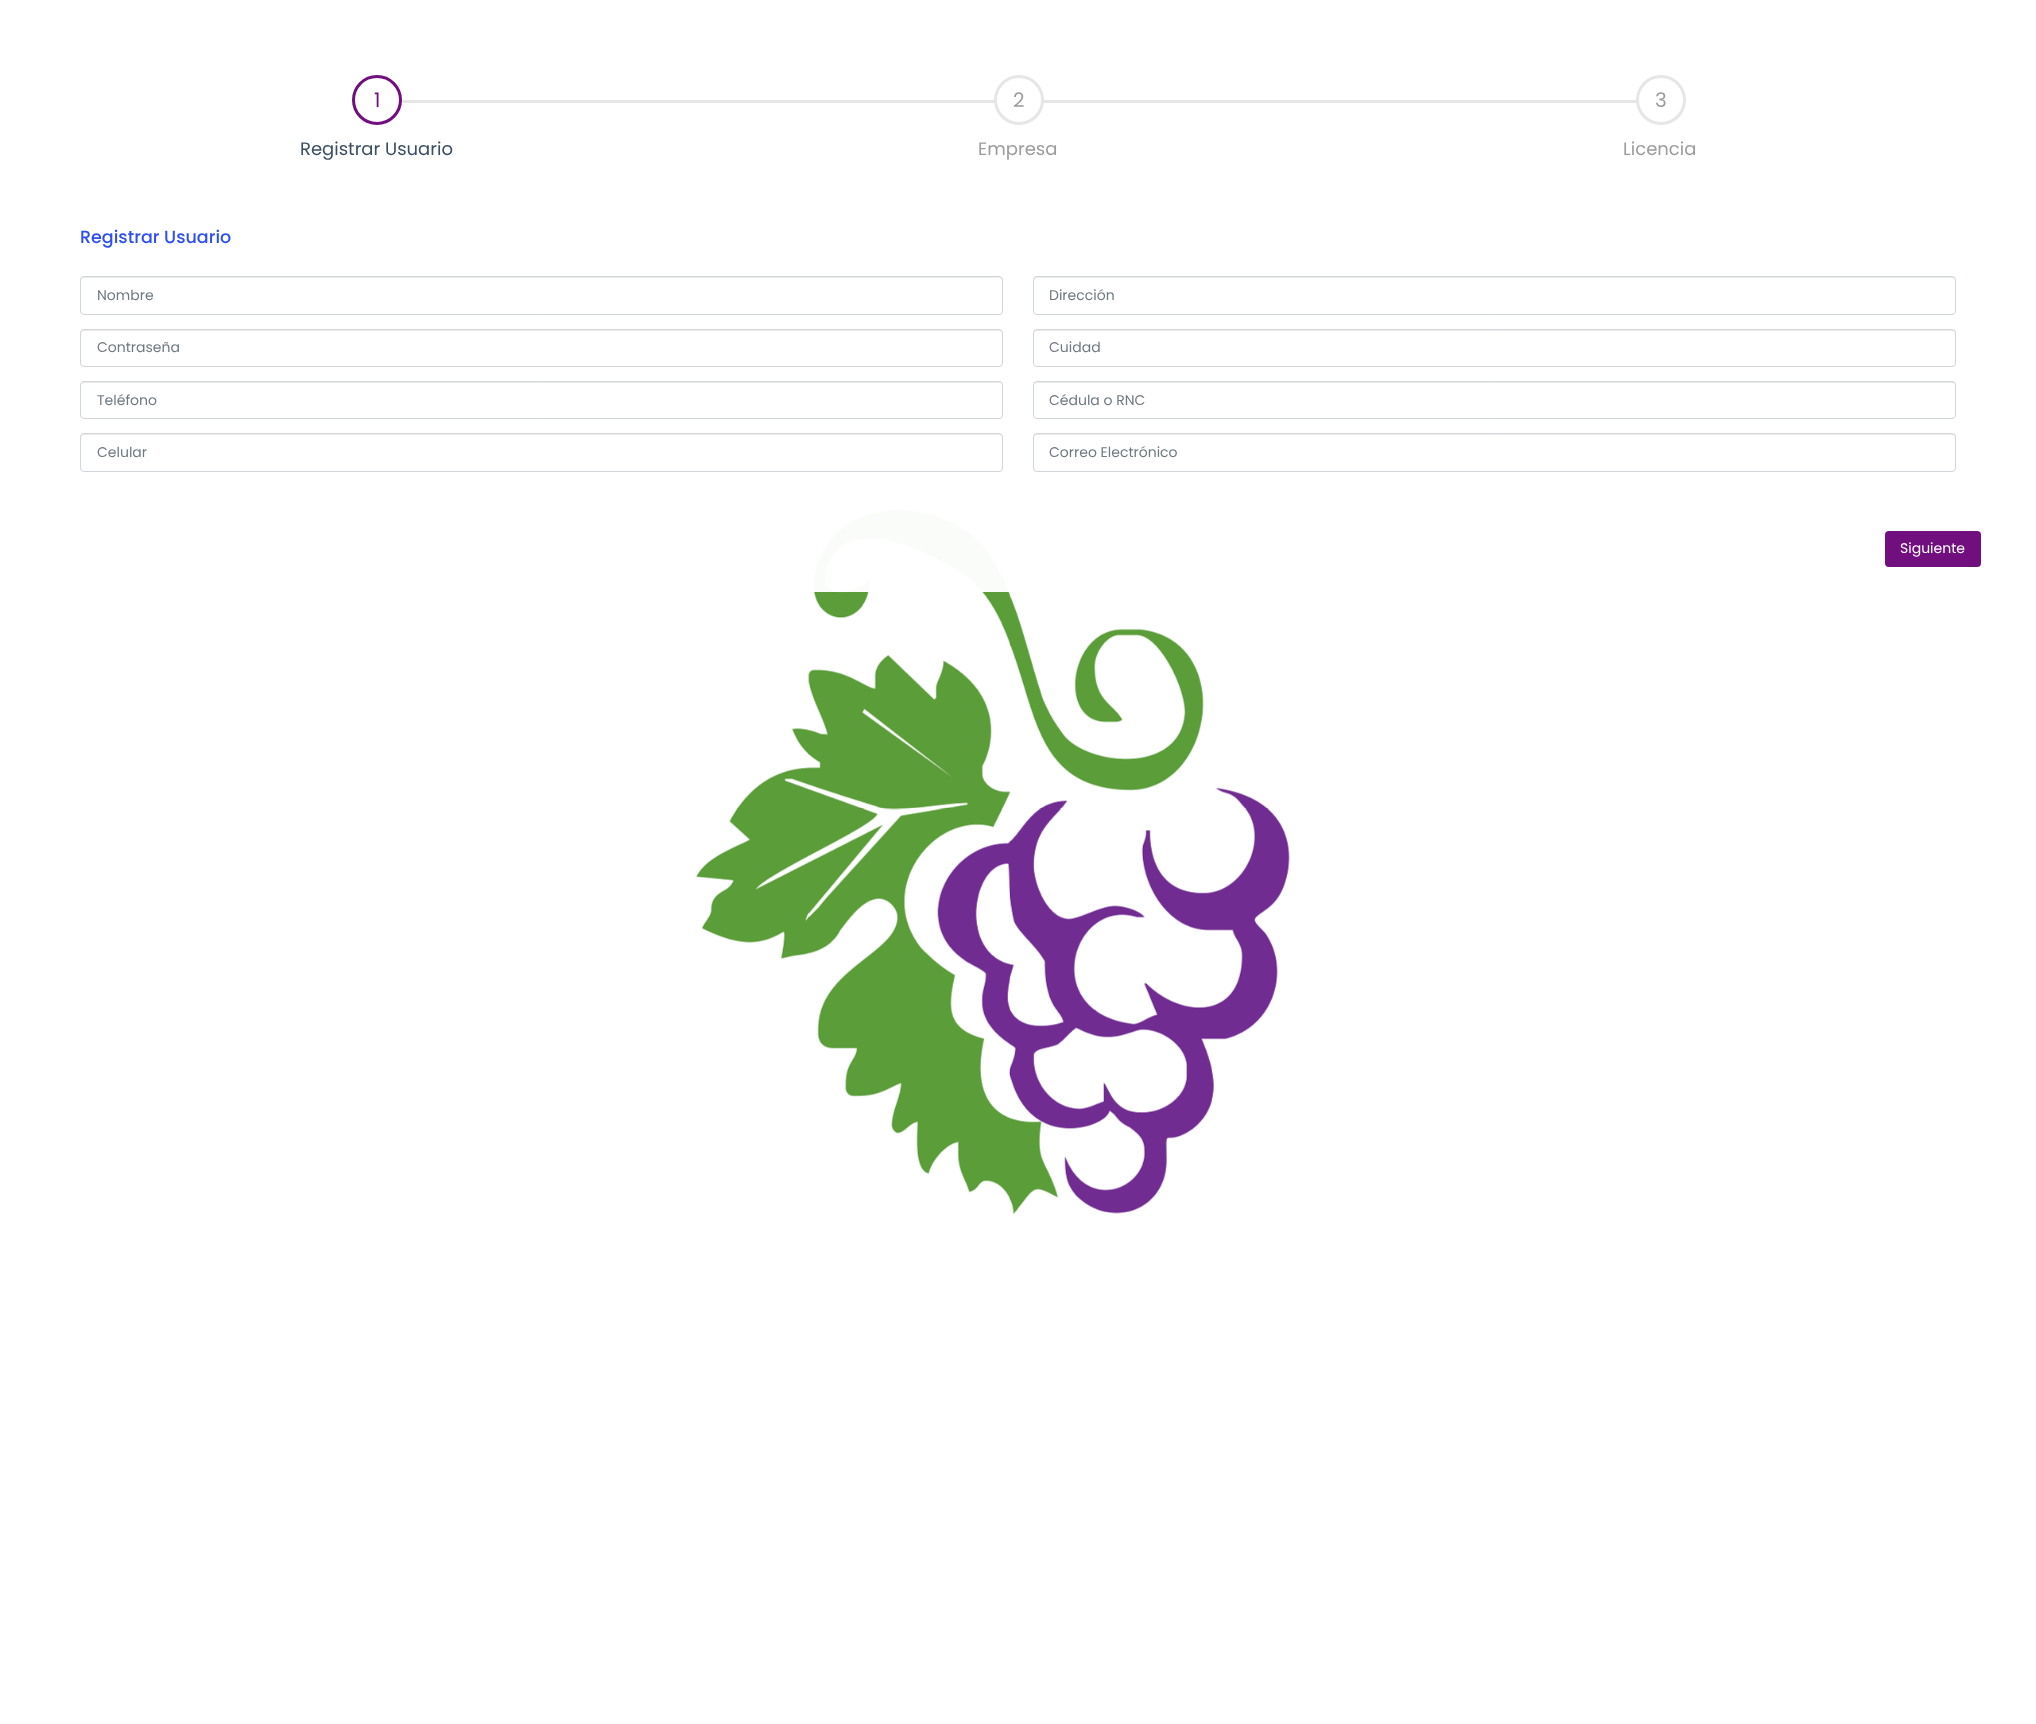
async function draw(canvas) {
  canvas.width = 2036;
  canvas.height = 1724;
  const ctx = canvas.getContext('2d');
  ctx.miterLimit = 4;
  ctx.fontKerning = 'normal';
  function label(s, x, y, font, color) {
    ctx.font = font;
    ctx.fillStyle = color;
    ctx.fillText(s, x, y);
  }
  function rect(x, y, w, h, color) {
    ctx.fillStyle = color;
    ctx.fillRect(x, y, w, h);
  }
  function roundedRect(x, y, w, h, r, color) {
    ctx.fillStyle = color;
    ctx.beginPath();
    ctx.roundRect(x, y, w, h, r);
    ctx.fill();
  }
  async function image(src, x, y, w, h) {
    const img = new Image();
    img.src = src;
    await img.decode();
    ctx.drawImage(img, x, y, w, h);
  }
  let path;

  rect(0, 0, 2036, 1724, '#fff');
  await image('assets/img1.png', 696, 509, 594, 706);
  roundedRect(30, 30, 1976, 562, 8, '#fffffff7');
  rect(401, 100, 594, 3, '#e6e6e6');
  ctx.fillStyle = '#fff';
  ctx.beginPath();
  ctx.arc(377, 100, 23.5, 0, 2 * Math.PI);
  ctx.fill();
  ctx.strokeStyle = '#710f7e';
  ctx.lineWidth = 3;
  ctx.stroke();
  label('1', 374, 107, '20px Poppins', '#710f7e');
  label('Registrar Usuario', 300, 155, '18px Poppins', '#3a4e64');
  rect(1043, 100, 594, 3, '#e6e6e6');
  ctx.fillStyle = '#fff';
  ctx.beginPath();
  ctx.arc(1019, 100, 23.5, 0, 2 * Math.PI);
  ctx.fill();
  ctx.strokeStyle = '#e6e6e6';
  ctx.stroke();
  label('2', 1013, 107, '20px Poppins', '#9c9c9c');
  label('Empresa', 978, 155, '18px Poppins', '#9c9c9c');
  ctx.fillStyle = '#fff';
  ctx.beginPath();
  ctx.arc(1661, 100, 23.5, 0, 2 * Math.PI);
  ctx.fill();
  ctx.stroke();
  label('3', 1655, 107, '20px Poppins', '#9c9c9c');
  label('Licencia', 1623, 155, '18px Poppins', '#9c9c9c');
  label('Registrar Usuario', 80, 243, '500 17.5px Poppins', '#2f4eef');
  ctx.fillStyle = '#ececec';
  path = new Path2D('M84 278H1000C1001 278 1002 279 1002 280C1002 278 1001 277 1000 277H84C82 277 81 278 81 280C81 279 82 278 84 278Z');
  ctx.fill(path);
  ctx.beginPath();
  ctx.roundRect(80.5, 276.5, 922, 38, 3.5);
  ctx.strokeStyle = '#cfd5db';
  ctx.lineWidth = 1;
  ctx.stroke();
  label('Nombre', 97, 300, '14px Poppins', '#707981');
  ctx.fillStyle = '#ececec';
  path = new Path2D('M84 331H1000C1001 331 1002 332 1002 334C1002 332 1002 330 1000 330H84C81 330 81 332 81 334C81 332 82 331 84 331Z');
  ctx.fill(path);
  ctx.beginPath();
  ctx.roundRect(80.5, 329.5, 922, 37, 3.5);
  ctx.stroke();
  label('Contraseña', 97, 352, '14px Poppins', '#707981');
  ctx.fillStyle = '#ececec';
  path = new Path2D('M84 383H1000C1001 383 1002 384 1002 386C1002 384 1002 382 1000 382H84C81 382 81 384 81 386C81 384 82 383 84 383Z');
  ctx.fill(path);
  ctx.beginPath();
  ctx.roundRect(80.5, 381.5, 922, 37, 3.5);
  ctx.stroke();
  label('Teléfono', 97, 405, '14px Poppins', '#707981');
  ctx.fillStyle = '#ececec';
  path = new Path2D('M84 435H1000C1001 435 1002 436 1002 438C1002 436 1002 434 1000 434H84C81 434 81 436 81 438C81 436 82 435 84 435Z');
  ctx.fill(path);
  ctx.beginPath();
  ctx.roundRect(80.5, 433.5, 922, 38, 3.5);
  ctx.stroke();
  label('Celular', 97, 457, '14px Poppins', '#707981');
  ctx.fillStyle = '#ececec';
  path = new Path2D('M1036 278H1952C1954 278 1955 279 1955 280C1955 278 1954 277 1952 277H1036C1035 277 1034 278 1034 280C1034 279 1035 278 1036 278Z');
  ctx.fill(path);
  ctx.beginPath();
  ctx.roundRect(1033.5, 276.5, 922, 38, 3.5);
  ctx.stroke();
  label('Dirección', 1049, 300, '14px Poppins', '#707981');
  ctx.fillStyle = '#ececec';
  path = new Path2D('M1036 331H1952C1954 331 1955 332 1955 334C1955 332 1955 330 1952 330H1036C1034 330 1034 332 1034 334C1034 332 1035 331 1036 331Z');
  ctx.fill(path);
  ctx.beginPath();
  ctx.roundRect(1033.5, 329.5, 922, 37, 3.5);
  ctx.stroke();
  label('Cuidad', 1049, 352, '14px Poppins', '#707981');
  ctx.fillStyle = '#ececec';
  path = new Path2D('M1036 383H1952C1954 383 1955 384 1955 386C1955 384 1955 382 1952 382H1036C1034 382 1034 384 1034 386C1034 384 1035 383 1036 383Z');
  ctx.fill(path);
  ctx.beginPath();
  ctx.roundRect(1033.5, 381.5, 922, 37, 3.5);
  ctx.stroke();
  label('Cédula o RNC', 1049, 405, '14px Poppins', '#707981');
  ctx.fillStyle = '#ececec';
  path = new Path2D('M1036 435H1952C1954 435 1955 436 1955 438C1955 436 1955 434 1952 434H1036C1034 434 1034 436 1034 438C1034 436 1035 435 1036 435Z');
  ctx.fill(path);
  ctx.beginPath();
  ctx.roundRect(1033.5, 433.5, 922, 38, 3.5);
  ctx.stroke();
  label('Correo Electrónico', 1049, 457, '14px Poppins', '#707981');
  roundedRect(1885, 531, 96, 36, 4, '#710f7e');
  label('Siguiente', 1900, 553, '14px Poppins', '#fff');
}

draw(document.querySelector('canvas'));
